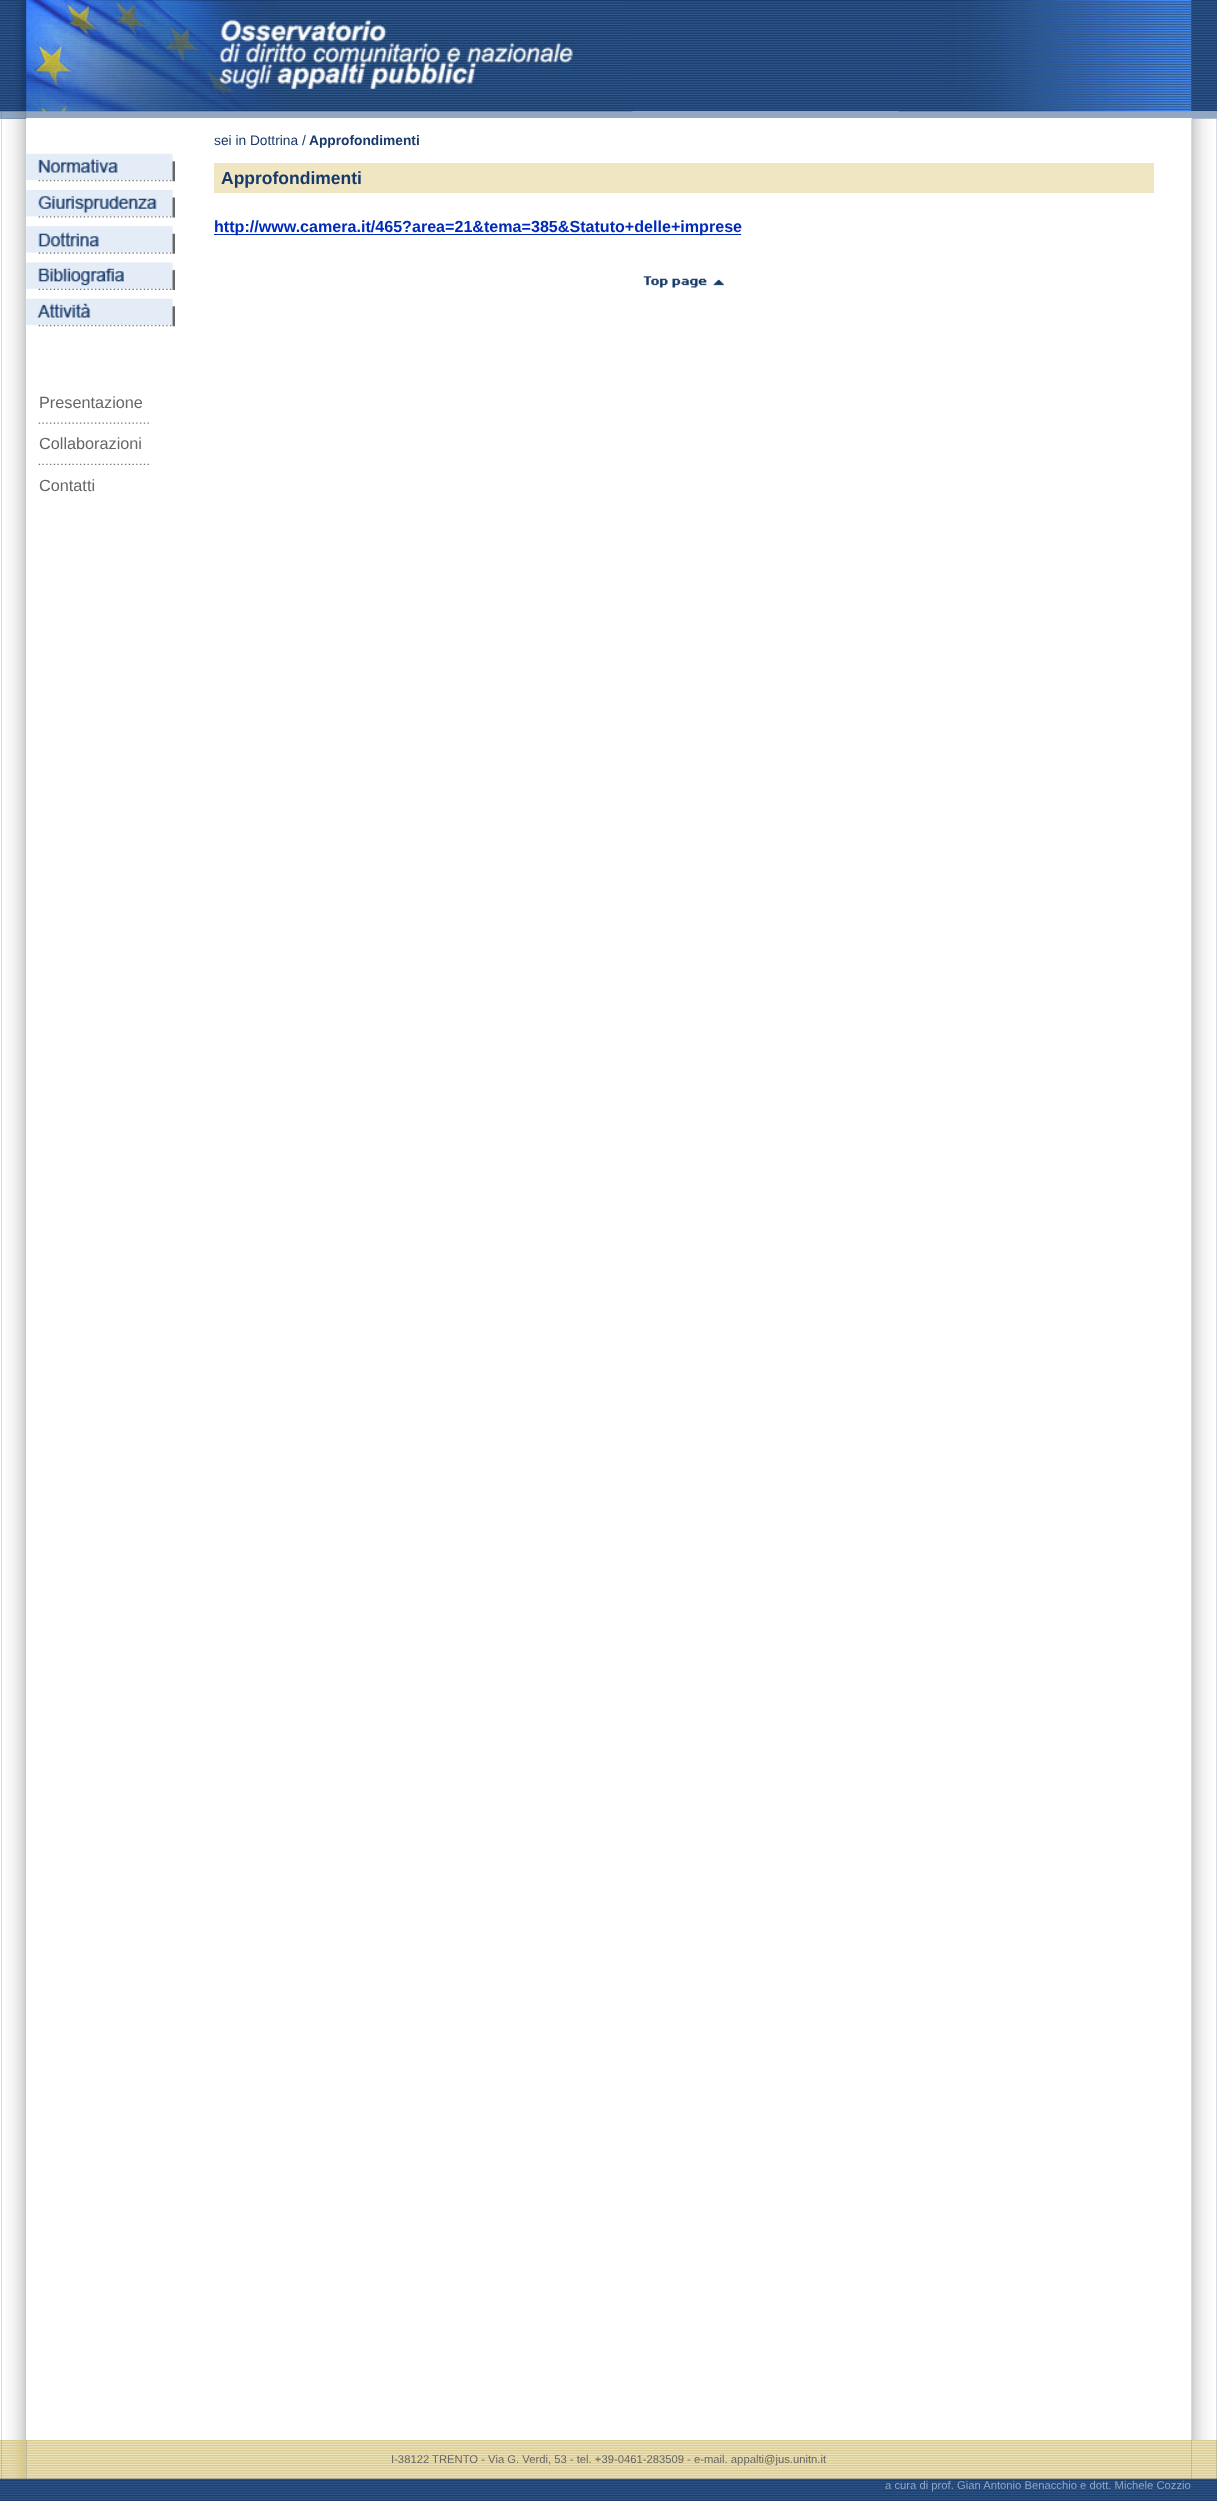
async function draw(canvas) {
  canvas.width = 1217;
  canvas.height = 2501;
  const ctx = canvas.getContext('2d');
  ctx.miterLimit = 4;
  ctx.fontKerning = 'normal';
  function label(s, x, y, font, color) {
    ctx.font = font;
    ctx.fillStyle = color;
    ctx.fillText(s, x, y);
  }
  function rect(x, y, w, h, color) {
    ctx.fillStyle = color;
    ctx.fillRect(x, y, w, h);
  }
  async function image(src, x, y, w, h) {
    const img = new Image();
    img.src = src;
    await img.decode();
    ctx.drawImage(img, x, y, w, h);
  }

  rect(0, 0, 1217, 2501, '#fff');
  await image('assets/img1.png', 0, 0, 1217, 2501);
  await image('assets/img2.png', 15, 1, 12, 111);
  rect(26, 111, 1166, 7, '#92a7c3');
  await image('assets/img3.png', 26, 0, 607, 112);
  await image('assets/img4.png', 633, 0, 266, 111);
  await image('assets/img5.png', 898, 0, 294, 112);
  await image('assets/img6.png', 0, 111, 2, 8);
  await image('assets/img8.png', 0, 118, 2, 2322);
  await image('assets/img9.png', 1, 118, 25, 2322);
  rect(26, 118, 1166, 2322, '#fff');
  await image('assets/img7.png', 1, 111, 26, 8);
  rect(1192, 111, 25, 8, '#92a7c3');
  await image('assets/img10.png', 1191, 118, 26, 2322);
  label('sei in Dottrina /', 214, 145, '13.75px Liberation Sans', '#183a6a');
  label('Approfondimenti', 309, 145, 'bold 13.75px Liberation Sans', '#183a6a');
  rect(214, 163, 940, 30, '#f0e6c2');
  label('Approfondimenti', 221, 184, 'bold 17.5px Liberation Sans', '#183a6a');
  rect(214, 234, 527, 1, '#002bb8');
  label('http://www.camera.it/465?area=21&tema=385&Statuto+delle+imprese', 214, 232, 'bold 16.1px Liberation Sans', '#002bb8');
  await image('assets/img11.png', 643, 275, 81, 13);
  await image('assets/img12.png', 26, 153, 149, 29);
  await image('assets/img13.png', 26, 190, 149, 28);
  await image('assets/img14.png', 26, 226, 149, 28);
  await image('assets/img15.png', 26, 262, 149, 28);
  await image('assets/img16.png', 26, 298, 149, 29);
  label('Presentazione', 39, 408, '16.25px Liberation Sans', '#666');
  await image('assets/img17.png', 38, 422, 111, 2);
  label('Collaborazioni', 39, 449, '16.25px Liberation Sans', '#666');
  await image('assets/img18.png', 38, 463, 111, 2);
  label('Contatti', 39, 491, '16.25px Liberation Sans', '#666');
  await image('assets/img19.png', 1216, 118, 1, 2322);
  await image('assets/img20.png', 0, 2440, 2, 39);
  await image('assets/img21.png', 1, 2440, 26, 39);
  await image('assets/img23.png', 26, 2440, 1166, 39);
  await image('assets/img22.png', 1191, 2440, 26, 39);
  label('I-38122 TRENTO - Via G. Verdi, 53 - tel. +39-0461-283509 - e-mail. appalti@jus.unitn.it', 391, 2463, '11.25px Liberation Sans', '#666');
  await image('assets/img24.png', 1216, 2440, 1, 39);
  label('a cura di prof. Gian Antonio Benacchio e dott. Michele Cozzio', 885, 2489, '11.25px Liberation Sans', '#92a7c3');
}

draw(document.querySelector('canvas'));
